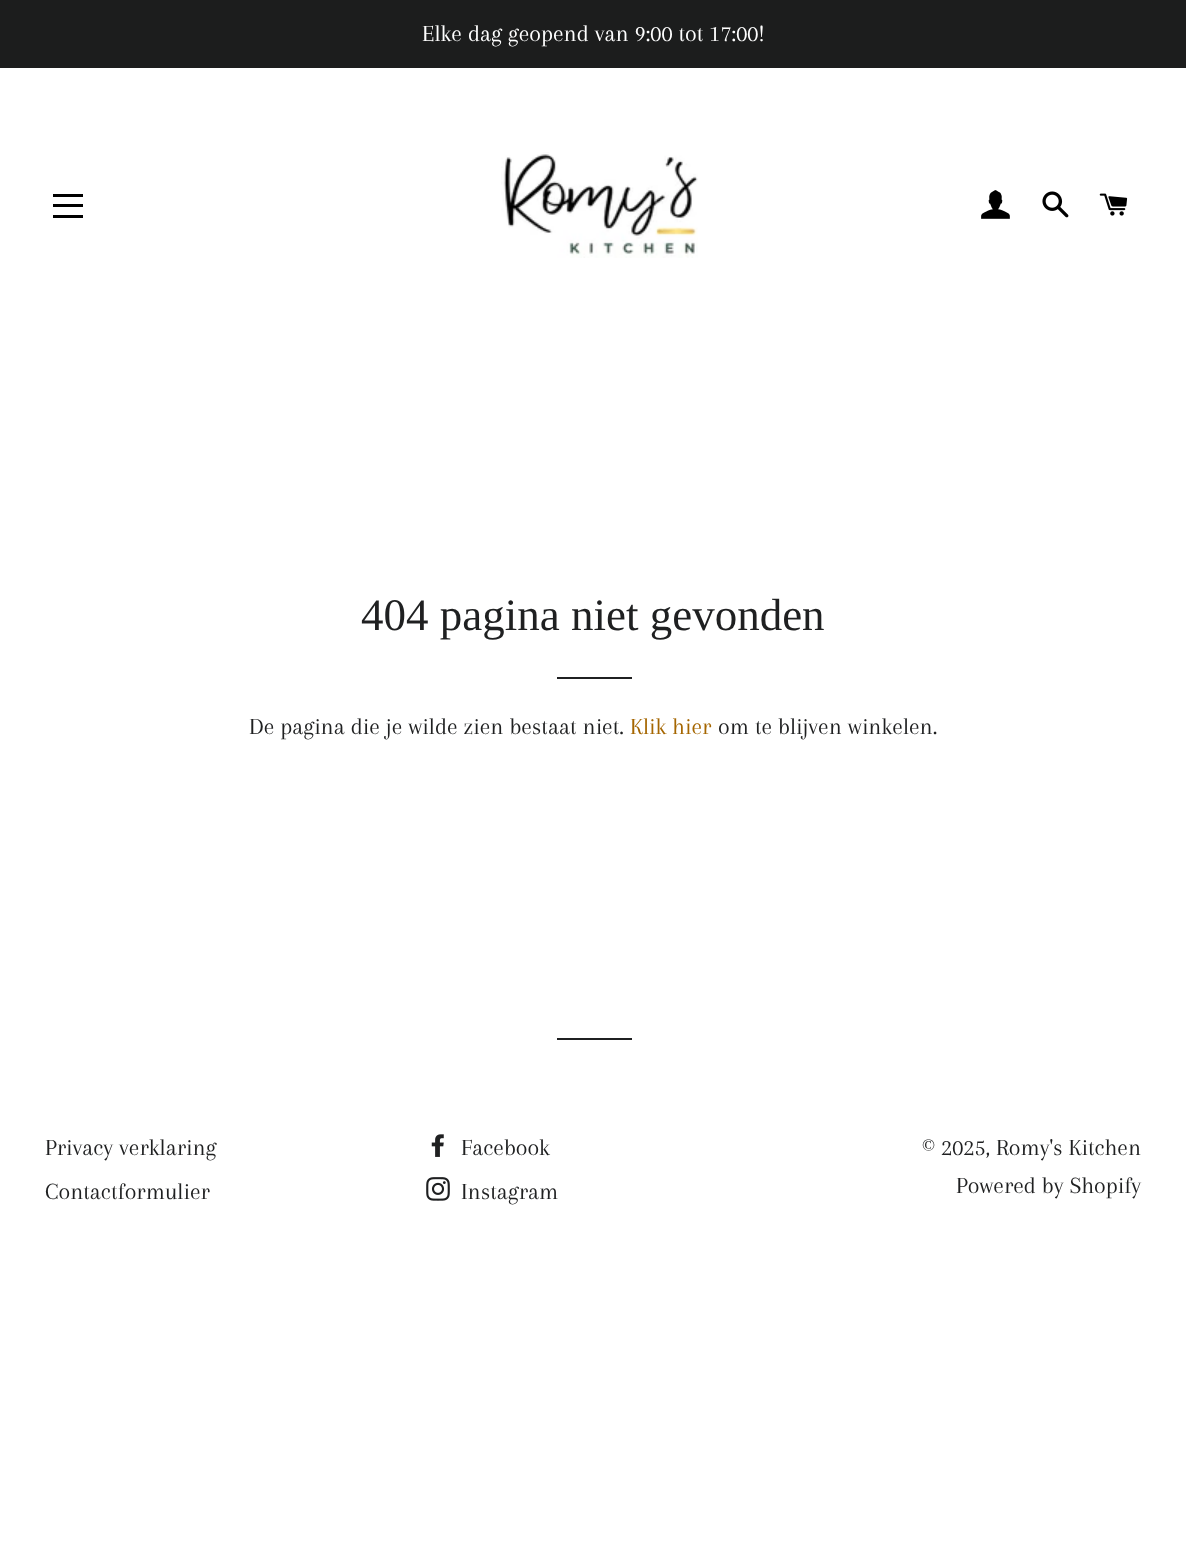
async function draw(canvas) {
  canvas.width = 1186;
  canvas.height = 1557;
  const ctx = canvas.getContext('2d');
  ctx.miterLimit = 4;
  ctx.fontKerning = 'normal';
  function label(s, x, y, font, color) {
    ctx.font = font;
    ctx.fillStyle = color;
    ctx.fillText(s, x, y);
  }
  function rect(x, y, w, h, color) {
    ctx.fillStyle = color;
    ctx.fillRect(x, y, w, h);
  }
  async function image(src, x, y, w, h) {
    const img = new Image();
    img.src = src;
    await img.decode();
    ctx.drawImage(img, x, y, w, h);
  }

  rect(0, 0, 1186, 1557, '#fff');
  rect(0, 0, 1186, 68, '#1c1d1d');
  label('Elke dag geopend van 9:00 tot 17:00!', 422, 41, '24px Arapey', '#fff');
  rect(53, 194, 30, 3, '#000');
  rect(53, 204, 30, 3, '#000');
  rect(53, 215, 30, 3, '#000');
  await image('assets/img1.png', 501, 152, 197, 106);
  await image('assets/img2.png', 981, 190, 29, 29);
  await image('assets/img3.png', 1042, 191, 27, 27);
  await image('assets/img4.png', 1099, 193, 29, 23);
  label('404 pagina niet gevonden', 361, 630, '45px Liberation Serif', '#1f2021');
  rect(557, 677, 75, 2, '#1f2021');
  label('De pagina die je wilde zien bestaat niet.', 249, 734, '24px Arapey', '#1f2021');
  label('Klik hier', 630, 734, '24px Arapey', '#a56600');
  label('om te blijven winkelen.', 718, 734, '24px Arapey', '#1f2021');
  rect(557, 1038, 75, 2, '#1f2021');
  label('Privacy verklaring', 45, 1155, '24px Arapey', '#1f2021');
  label('Contactformulier', 45, 1199, '24px Arapey', '#1f2021');
  await image('assets/img5.png', 431, 1134, 13, 23);
  label('Facebook', 461, 1155, '24px Arapey', '#1f2021');
  await image('assets/img6.png', 426, 1177, 24, 24);
  label('Instagram', 461, 1199, '24px Arapey', '#1f2021');
  label('© 2025, Romy\'s Kitchen', 922, 1155, '24px Arapey', '#1f2021');
  label('Powered by Shopify', 956, 1193, '24px Arapey', '#1f2021');
}

draw(document.querySelector('canvas'));
